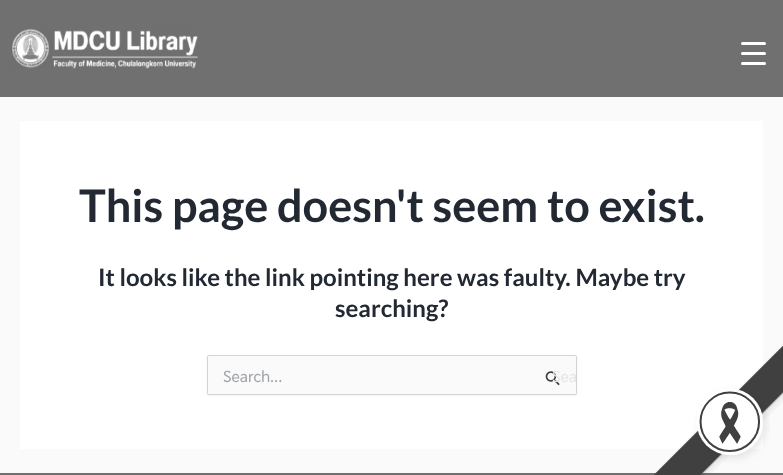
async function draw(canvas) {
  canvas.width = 783;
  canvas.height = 475;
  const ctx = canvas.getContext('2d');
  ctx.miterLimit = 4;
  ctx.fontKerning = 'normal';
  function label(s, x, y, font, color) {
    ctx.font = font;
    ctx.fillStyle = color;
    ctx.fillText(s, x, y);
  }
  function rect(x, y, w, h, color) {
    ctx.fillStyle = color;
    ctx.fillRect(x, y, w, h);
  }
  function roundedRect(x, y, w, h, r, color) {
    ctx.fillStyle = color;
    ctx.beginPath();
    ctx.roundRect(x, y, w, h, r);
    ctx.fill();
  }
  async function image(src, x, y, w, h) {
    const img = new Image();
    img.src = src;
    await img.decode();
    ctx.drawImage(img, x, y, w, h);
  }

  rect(0, 0, 783, 475, '#fafafa');
  rect(0, 0, 783, 97, '#707070');
  roundedRect(741, 52, 25, 3, 1.5, '#fff');
  roundedRect(741, 42, 25, 3, 1.5, '#fff');
  roundedRect(741, 62, 25, 3, 1.5, '#fff');
  await image('assets/img1.png', 11, 29, 187, 40);
  rect(20, 121, 743, 328, '#fff');
  label('This page doesn\'t seem to exist.', 79, 222, 'bold 45px Lato', '#222933');
  label('It looks like the link pointing here was faulty. Maybe try', 98, 286, 'bold 24px Lato', '#222933');
  label('searching?', 335, 317, 'bold 24px Lato', '#222933');
  ctx.fillStyle = '#0000000d';
  ctx.filter = 'blur(1px)';
  ctx.beginPath();
  ctx.roundRect(207, 356, 370, 40, 2);
  ctx.fill();
  ctx.filter = 'none';
  ctx.fillStyle = '#fafafa';
  ctx.beginPath();
  ctx.roundRect(207.5, 355.5, 369, 39, 1.5);
  ctx.fill();
  ctx.strokeStyle = '#d2d5d8';
  ctx.stroke();
  label('Search...', 223, 382, '16px Sarabun', '#9fa3aa');
  await image('assets/img2.png', 545, 371, 15, 15);
  label('Sea', 552, 382, '16px Sarabun', '#e5e5e5');
  rect(0, 473, 783, 2, '#707070');
  await image('assets/img3.png', 654, 345, 129, 130);
}

draw(document.querySelector('canvas'));
